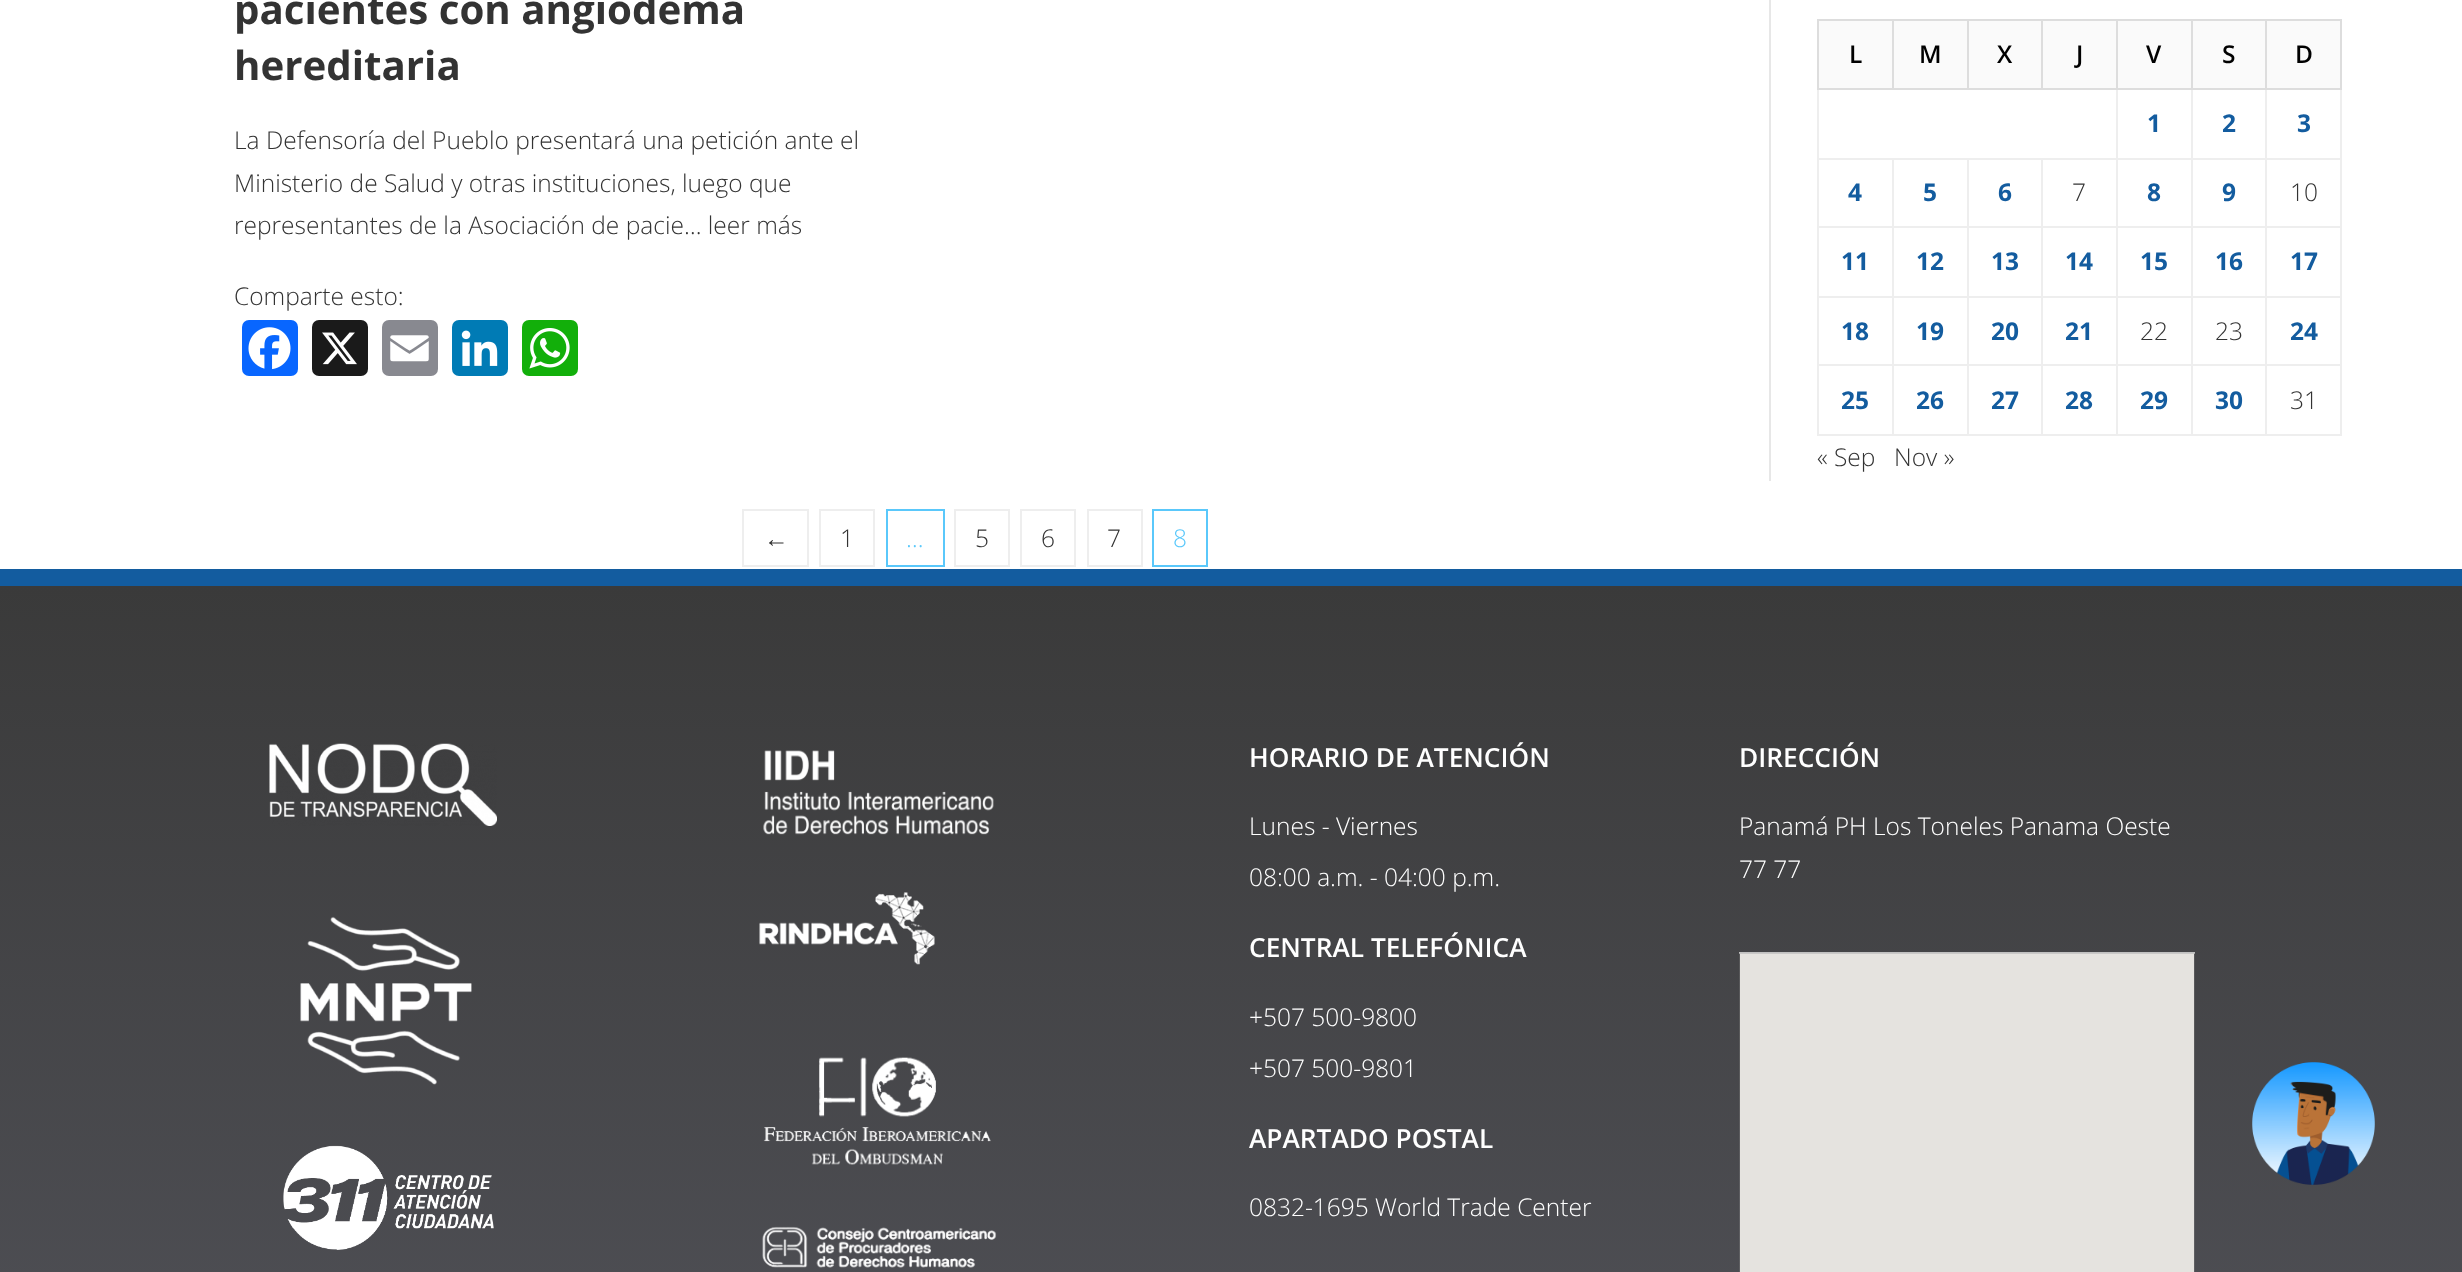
async function draw(canvas) {
  canvas.width = 2462;
  canvas.height = 1272;
  const ctx = canvas.getContext('2d');
  ctx.miterLimit = 4;
  ctx.fontKerning = 'normal';
  function label(s, x, y, font, color) {
    ctx.font = font;
    ctx.fillStyle = color;
    ctx.fillText(s, x, y);
  }
  function rect(x, y, w, h, color) {
    ctx.fillStyle = color;
    ctx.fillRect(x, y, w, h);
  }
  function roundedRect(x, y, w, h, r, color) {
    ctx.fillStyle = color;
    ctx.beginPath();
    ctx.roundRect(x, y, w, h, r);
    ctx.fill();
  }
  async function image(src, x, y, w, h) {
    const img = new Image();
    img.src = src;
    await img.decode();
    ctx.drawImage(img, x, y, w, h);
  }
  let gradient;

  rect(0, 0, 2462, 1272, '#fff');
  label('pacientes con angiodema', 234, 24, 'bold 40.25px Open Sans', '#333');
  label('hereditaria', 234, 80, 'bold 40.25px Open Sans', '#333');
  label('La Defensoría del Pueblo presentará una petición ante el', 234, 149, '300 24.5px Open Sans', '#333');
  label('Ministerio de Salud y otras instituciones, luego que', 234, 192, '300 24.5px Open Sans', '#333');
  label('representantes de la Asociación de pacie… leer más', 234, 234, '300 24.5px Open Sans', '#333');
  label('Comparte esto:', 234, 305, '300 24.5px Open Sans', '#333');
  roundedRect(242, 320, 56, 56, 7, '#0866ff');
  await image('assets/img1.png', 248, 327, 43, 43);
  roundedRect(312, 320, 56, 56, 7, '#1a1a1a');
  await image('assets/img2.png', 322, 332, 35, 33);
  roundedRect(382, 320, 56, 56, 7, '#888990');
  await image('assets/img3.png', 390, 335, 39, 27);
  roundedRect(452, 320, 56, 56, 7, '#007bb5');
  await image('assets/img4.png', 461, 330, 37, 36);
  roundedRect(522, 320, 56, 56, 7, '#12af0a');
  await image('assets/img5.png', 529, 328, 41, 41);
  ctx.strokeStyle = '#eee';
  ctx.lineWidth = 2;
  ctx.strokeRect(743, 510, 65, 56);
  label('←', 764, 547, '24.5px Liberation Sans', '#333');
  ctx.strokeRect(820, 510, 54, 56);
  label('1', 840, 547, '300 24.5px Open Sans', '#333');
  ctx.strokeRect(955, 510, 54, 56);
  label('5', 975, 547, '300 24.5px Open Sans', '#333');
  ctx.strokeRect(1021, 510, 54, 56);
  label('6', 1041, 547, '300 24.5px Open Sans', '#333');
  ctx.strokeRect(1088, 510, 54, 56);
  label('7', 1107, 547, '300 24.5px Open Sans', '#333');
  ctx.strokeStyle = '#5ac8fb';
  ctx.strokeRect(1153, 510, 54, 56);
  label('8', 1173, 547, '300 24.5px Open Sans', '#5ac8fb');
  ctx.strokeRect(887, 510, 57, 56);
  label('…', 906, 547, '300 24.5px Open Sans', '#5ac8fb');
  rect(1769, 0, 2, 481, '#e7e7e7');
  rect(1819, 21, 73, 67, '#fafafa');
  rect(2265, 19, 77, 2, '#ddd');
  rect(2265, 158, 77, 2, '#eee');
  rect(2265, 226, 77, 2, '#eee');
  rect(2265, 296, 77, 2, '#eee');
  rect(2265, 364, 77, 2, '#eee');
  rect(2340, 364, 2, 72, '#eee');
  rect(2340, 296, 2, 70, '#eee');
  rect(2340, 226, 2, 72, '#eee');
  rect(2340, 88, 2, 140, '#eee');
  rect(2340, 19, 2, 70, '#ddd');
  rect(2265, 434, 77, 2, '#eee');
  rect(2265, 364, 2, 72, '#eee');
  rect(2191, 364, 75, 2, '#eee');
  rect(2265, 296, 2, 70, '#eee');
  rect(2191, 296, 75, 2, '#eee');
  rect(2265, 226, 2, 72, '#eee');
  rect(2191, 226, 75, 2, '#eee');
  rect(2265, 158, 2, 70, '#eee');
  rect(2191, 158, 75, 2, '#eee');
  rect(2265, 88, 2, 71, '#eee');
  rect(2265, 88, 77, 2, '#ddd');
  rect(2265, 19, 2, 70, '#ddd');
  rect(2191, 19, 75, 2, '#ddd');
  rect(2191, 434, 75, 2, '#eee');
  rect(2191, 364, 2, 72, '#eee');
  rect(2116, 364, 77, 2, '#eee');
  rect(2191, 296, 2, 70, '#eee');
  rect(2116, 296, 77, 2, '#eee');
  rect(2191, 226, 2, 72, '#eee');
  rect(2116, 226, 77, 2, '#eee');
  rect(2191, 158, 2, 70, '#eee');
  rect(2116, 158, 77, 2, '#eee');
  rect(2191, 88, 2, 71, '#eee');
  rect(2191, 88, 75, 2, '#ddd');
  rect(2191, 19, 2, 70, '#ddd');
  rect(2116, 19, 77, 2, '#ddd');
  rect(2116, 434, 77, 2, '#eee');
  rect(2116, 364, 2, 72, '#eee');
  rect(2041, 364, 77, 2, '#eee');
  rect(2116, 296, 2, 70, '#eee');
  rect(2041, 296, 77, 2, '#eee');
  rect(2116, 226, 2, 72, '#eee');
  rect(2041, 226, 77, 2, '#eee');
  rect(2116, 158, 2, 70, '#eee');
  rect(2041, 158, 77, 2, '#eee');
  rect(2116, 88, 2, 71, '#eee');
  rect(2116, 88, 77, 2, '#ddd');
  rect(2116, 19, 2, 70, '#ddd');
  rect(2041, 19, 77, 2, '#ddd');
  rect(2041, 88, 77, 2, '#ddd');
  rect(2041, 19, 2, 70, '#ddd');
  rect(1967, 19, 75, 2, '#ddd');
  rect(1967, 88, 75, 2, '#ddd');
  rect(1967, 19, 2, 70, '#ddd');
  rect(1892, 19, 77, 2, '#ddd');
  rect(1892, 88, 77, 2, '#ddd');
  rect(1892, 19, 2, 70, '#ddd');
  rect(1817, 19, 77, 2, '#ddd');
  rect(2041, 434, 77, 2, '#eee');
  rect(2041, 364, 2, 72, '#eee');
  rect(1967, 364, 75, 2, '#eee');
  rect(2041, 296, 2, 70, '#eee');
  rect(1967, 296, 75, 2, '#eee');
  rect(2041, 226, 2, 72, '#eee');
  rect(1967, 226, 75, 2, '#eee');
  rect(2041, 158, 2, 70, '#eee');
  rect(1967, 158, 75, 2, '#eee');
  rect(1967, 434, 75, 2, '#eee');
  rect(1967, 364, 2, 72, '#eee');
  rect(1892, 364, 77, 2, '#eee');
  rect(1967, 296, 2, 70, '#eee');
  rect(1892, 296, 77, 2, '#eee');
  rect(1967, 226, 2, 72, '#eee');
  rect(1892, 226, 77, 2, '#eee');
  rect(1967, 158, 2, 70, '#eee');
  rect(1892, 158, 77, 2, '#eee');
  rect(1892, 434, 77, 2, '#eee');
  rect(1892, 364, 2, 72, '#eee');
  rect(1817, 364, 77, 2, '#eee');
  rect(1892, 296, 2, 70, '#eee');
  rect(1817, 296, 77, 2, '#eee');
  rect(1892, 226, 2, 72, '#eee');
  rect(1817, 226, 77, 2, '#eee');
  rect(1892, 158, 2, 70, '#eee');
  rect(1817, 158, 77, 2, '#eee');
  rect(1817, 434, 77, 2, '#eee');
  rect(1817, 364, 2, 72, '#eee');
  rect(1817, 296, 2, 70, '#eee');
  rect(1817, 226, 2, 72, '#eee');
  rect(1817, 88, 2, 140, '#eee');
  rect(1817, 88, 77, 2, '#ddd');
  rect(1817, 19, 2, 70, '#ddd');
  label('L', 1849, 63, '600 24.5px Open Sans', '#000');
  rect(1894, 21, 73, 67, '#fafafa');
  label('M', 1919, 63, '600 24.5px Open Sans', '#000');
  rect(1969, 21, 72, 67, '#fafafa');
  label('X', 1997, 63, '600 24.5px Open Sans', '#000');
  rect(2043, 21, 73, 67, '#fafafa');
  label('J', 2076, 63, '600 24.5px Open Sans', '#000');
  rect(2118, 21, 73, 67, '#fafafa');
  label('V', 2146, 63, '600 24.5px Open Sans', '#000');
  rect(2193, 21, 72, 67, '#fafafa');
  label('S', 2222, 63, '600 24.5px Open Sans', '#000');
  rect(2267, 21, 73, 67, '#fafafa');
  label('D', 2295, 63, '600 24.5px Open Sans', '#000');
  label('1', 2147, 132, 'bold 24.5px Open Sans', '#135c9f');
  label('2', 2222, 132, 'bold 24.5px Open Sans', '#135c9f');
  label('3', 2297, 132, 'bold 24.5px Open Sans', '#135c9f');
  label('4', 1848, 201, 'bold 24.5px Open Sans', '#135c9f');
  label('5', 1923, 201, 'bold 24.5px Open Sans', '#135c9f');
  label('6', 1998, 201, 'bold 24.5px Open Sans', '#135c9f');
  label('7', 2072, 201, '300 24.5px Open Sans', '#333');
  label('8', 2147, 201, 'bold 24.5px Open Sans', '#135c9f');
  label('9', 2222, 201, 'bold 24.5px Open Sans', '#135c9f');
  label('10', 2290, 201, '300 24.5px Open Sans', '#333');
  label('11', 1841, 270, 'bold 24.5px Open Sans', '#135c9f');
  label('12', 1916, 270, 'bold 24.5px Open Sans', '#135c9f');
  label('13', 1991, 270, 'bold 24.5px Open Sans', '#135c9f');
  label('14', 2065, 270, 'bold 24.5px Open Sans', '#135c9f');
  label('15', 2140, 270, 'bold 24.5px Open Sans', '#135c9f');
  label('16', 2215, 270, 'bold 24.5px Open Sans', '#135c9f');
  label('17', 2290, 270, 'bold 24.5px Open Sans', '#135c9f');
  label('18', 1841, 340, 'bold 24.5px Open Sans', '#135c9f');
  label('19', 1916, 340, 'bold 24.5px Open Sans', '#135c9f');
  label('20', 1991, 340, 'bold 24.5px Open Sans', '#135c9f');
  label('21', 2065, 340, 'bold 24.5px Open Sans', '#135c9f');
  label('22', 2140, 340, '300 24.5px Open Sans', '#333');
  label('23', 2215, 340, '300 24.5px Open Sans', '#333');
  label('24', 2290, 340, 'bold 24.5px Open Sans', '#135c9f');
  label('25', 1841, 409, 'bold 24.5px Open Sans', '#135c9f');
  label('26', 1916, 409, 'bold 24.5px Open Sans', '#135c9f');
  label('27', 1991, 409, 'bold 24.5px Open Sans', '#135c9f');
  label('28', 2065, 409, 'bold 24.5px Open Sans', '#135c9f');
  label('29', 2140, 409, 'bold 24.5px Open Sans', '#135c9f');
  label('30', 2215, 409, 'bold 24.5px Open Sans', '#135c9f');
  label('31', 2290, 409, '300 24.5px Open Sans', '#333');
  label('« Sep', 1817, 466, '300 24.5px Open Sans', '#333');
  label('Nov »', 1894, 466, '300 24.5px Open Sans', '#333');
  gradient = ctx.createLinearGradient(1231, 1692, 1231, 586);
  gradient.addColorStop(0, '#575860');
  gradient.addColorStop(1, '#3a3a3a');
  ctx.fillStyle = gradient;
  ctx.fillRect(0, 586, 2462, 686);
  rect(0, 569, 2462, 17, '#135c9f');
  await image('assets/img6.png', 269, 743, 228, 83);
  await image('assets/img7.png', 300, 916, 172, 169);
  await image('assets/img8.png', 283, 1145, 211, 105);
  await image('assets/img9.png', 763, 750, 231, 85);
  await image('assets/img10.png', 759, 892, 176, 73);
  await image('assets/img11.png', 763, 1057, 228, 108);
  await image('assets/img12.png', 762, 1226, 235, 42);
  label('HORARIO DE ATENCIÓN', 1249, 767, '600 26.25px Open Sans', '#fff');
  label('Lunes - Viernes', 1249, 835, '300 24.5px Open Sans', '#fff');
  label('08:00 a.m. - 04:00 p.m.', 1249, 886, '300 24.5px Open Sans', '#fff');
  label('CENTRAL TELEFÓNICA', 1249, 957, '600 26.25px Open Sans', '#fff');
  label('+507 500-9800', 1249, 1026, '300 24.5px Open Sans', '#fff');
  label('+507 500-9801', 1249, 1077, '300 24.5px Open Sans', '#fff');
  label('APARTADO POSTAL', 1249, 1148, '600 26.25px Open Sans', '#fff');
  label('0832-1695 World Trade Center', 1249, 1216, '300 24.5px Open Sans', '#fff');
  label('DIRECCIÓN', 1739, 767, '600 26.25px Open Sans', '#fff');
  label('Panamá PH Los Toneles Panama Oeste', 1739, 835, '300 24.5px Open Sans', '#fff');
  label('77 77', 1739, 878, '300 24.5px Open Sans', '#fff');
  await image('assets/img13.png', 1739, 952, 456, 320);
  await image('assets/img14.png', 2252, 1062, 123, 123);
}

draw(document.querySelector('canvas'));
